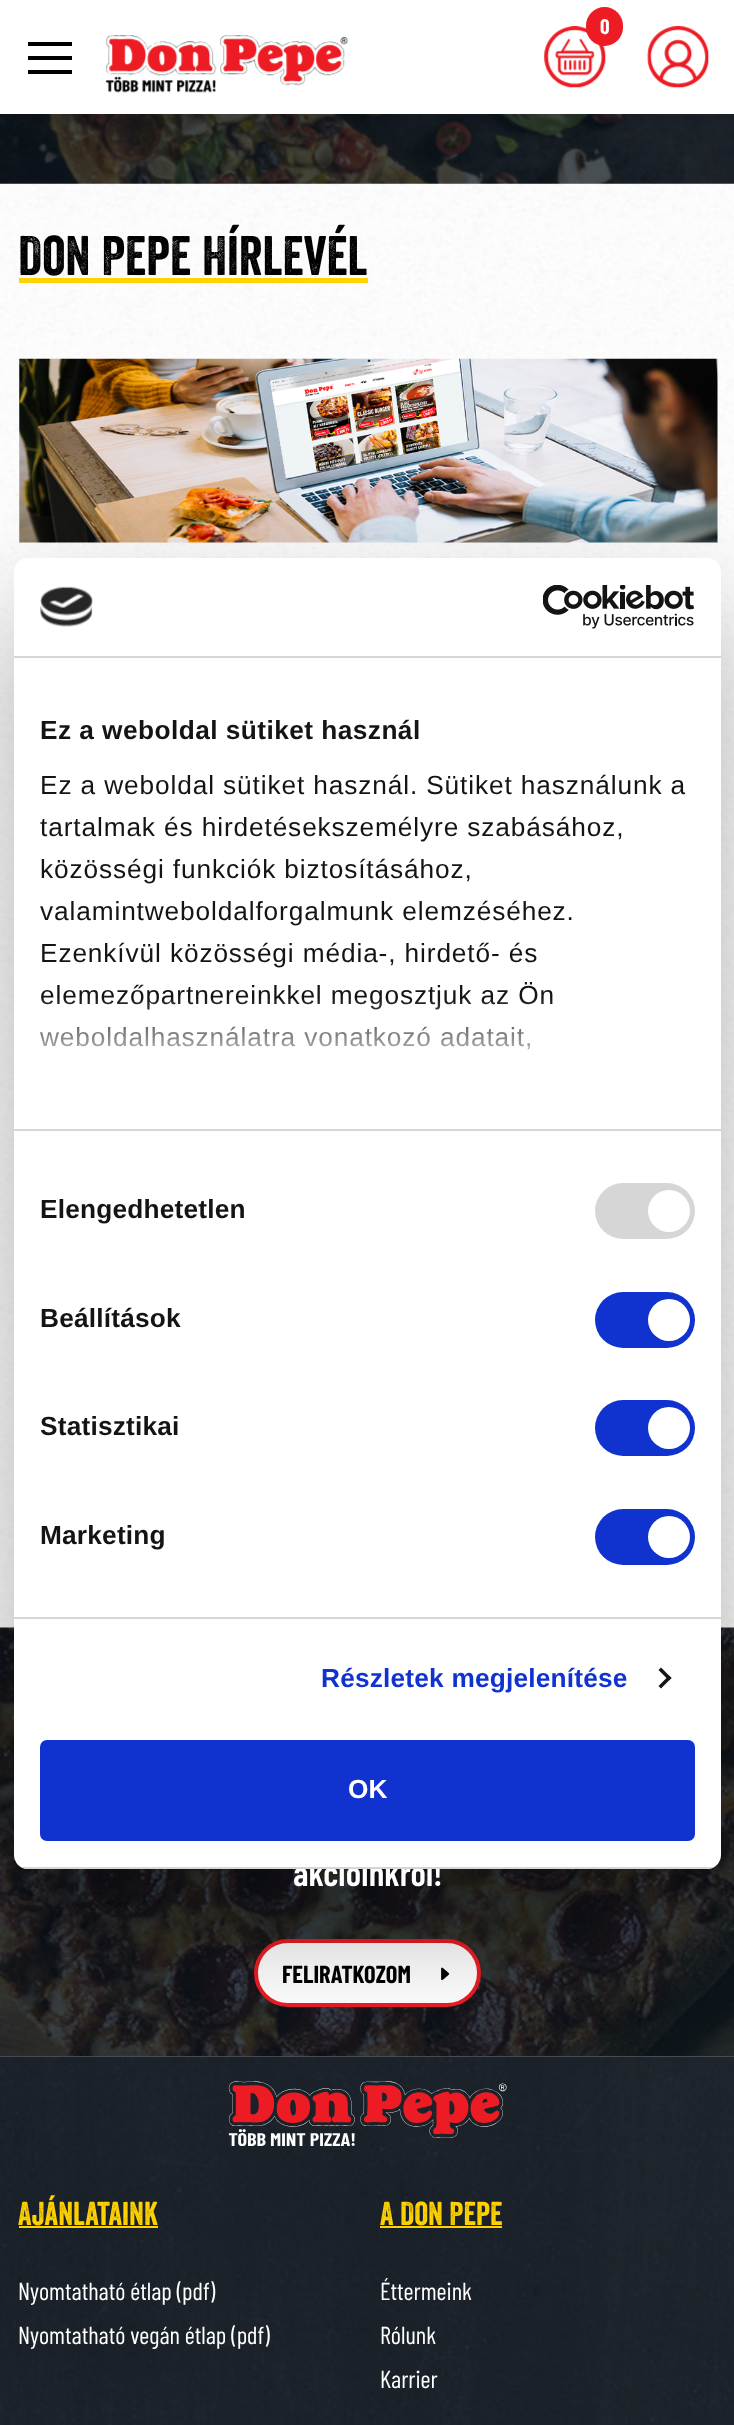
async function draw(canvas) {
  canvas.width = 734;
  canvas.height = 2425;
  const ctx = canvas.getContext('2d');
  ctx.miterLimit = 4;
  ctx.fontKerning = 'normal';
  function label(s, x, y, font, color) {
    ctx.font = font;
    ctx.fillStyle = color;
    ctx.fillText(s, x, y);
  }
  function rect(x, y, w, h, color) {
    ctx.fillStyle = color;
    ctx.fillRect(x, y, w, h);
  }
  function roundedRect(x, y, w, h, r, color) {
    ctx.fillStyle = color;
    ctx.beginPath();
    ctx.roundRect(x, y, w, h, r);
    ctx.fill();
  }
  async function image(src, x, y, w, h) {
    const img = new Image();
    img.src = src;
    await img.decode();
    ctx.drawImage(img, x, y, w, h);
  }
  let gradient, path;

  rect(0, 0, 734, 2425, '#fff');
  await image('assets/img1.png', 0, 183, 734, 1874);
  await image('assets/img5.png', 0, 114, 734, 70);
  ctx.fillStyle = '#00000026';
  ctx.filter = 'blur(22px)';
  ctx.beginPath();
  ctx.rect(0, 0, 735, 114);
  ctx.fill();
  ctx.filter = 'none';
  rect(0, 0, 734, 114, '#fff');
  await image('assets/img2.png', 544, 26, 62, 62);
  roundedRect(586, 7, 37, 39, 18.5, '#ed1c24');
  label('0', 600, 34, 'bold 21px Barlow Condensed', '#fff');
  await image('assets/img3.png', 647, 26, 62, 62);
  rect(28, 56, 44, 4, '#000');
  rect(28, 42, 44, 4, '#000');
  rect(28, 70, 44, 4, '#000');
  await image('assets/img4.png', 105, 35, 244, 58);
  label('Don Pepe Hírlevél', 18, 275, '54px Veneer', '#000');
  rect(19, 278, 349, 5, '#ffd200');
  await image('assets/img6.png', 19, 358, 699, 185);
  await image('assets/img9.png', 0, 1627, 734, 430);
  ctx.fillStyle = '#fff';
  ctx.beginPath();
  ctx.roundRect(256, 1941, 223, 64, 32);
  ctx.fill();
  ctx.strokeStyle = '#ed1c24';
  ctx.lineWidth = 4;
  ctx.stroke();
  await image('assets/img10.png', 441, 1967, 9, 13);
  await image('assets/img11.png', 0, 2056, 734, 369);
  await image('assets/img12.png', 228, 2081, 279, 65);
  ctx.fillStyle = '#0000004d';
  ctx.filter = 'blur(59.5px)';
  ctx.beginPath();
  ctx.roundRect(14, 614, 707, 1311, 14);
  ctx.fill();
  ctx.filter = 'none';
  roundedRect(14, 558, 707, 1311, 14, '#fff');
  rect(14, 656, 707, 2, '#d6d6d6');
  await image('assets/img7.png', 40, 586, 53, 41);
  await image('assets/img8.png', 543, 585, 152, 44);
  rect(14, 1129, 707, 2, '#d6d6d6');
  ctx.letterSpacing = '0.45px';
  label('Ez a weboldal sütiket használ', 40, 739, 'bold 26.25px Liberation Sans', '#141414');
  ctx.letterSpacing = '0.88px';
  label('Ez a weboldal sütiket használ. Sütiket használunk a', 40, 794, '26.25px Liberation Sans', '#141414');
  label('tartalmak és hirdetésekszemélyre szabásához,', 40, 836, '26.25px Liberation Sans', '#141414');
  label('közösségi funkciók biztosításához,', 40, 878, '26.25px Liberation Sans', '#141414');
  label('valamintweboldalforgalmunk elemzéséhez.', 40, 920, '26.25px Liberation Sans', '#141414');
  label('Ezenkívül közösségi média-, hirdető- és', 40, 962, '26.25px Liberation Sans', '#141414');
  label('elemezőpartnereinkkel megosztjuk az Ön', 40, 1004, '26.25px Liberation Sans', '#141414');
  label('weboldalhasználatra vonatkozó adatait,', 40, 1046, '26.25px Liberation Sans', '#141414');
  gradient = ctx.createLinearGradient(356, 1128, 356, 997);
  gradient.addColorStop(0, '#fff');
  gradient.addColorStop(0.5, '#ffffffcc');
  gradient.addColorStop(1, '#ffffff00');
  ctx.fillStyle = gradient;
  ctx.fillRect(40, 999, 513, 51);
  rect(14, 1617, 707, 2, '#d6d6d6');
  ctx.letterSpacing = '0.2px';
  label('Elengedhetetlen', 40, 1218, 'bold 26.25px Liberation Sans', '#141414');
  roundedRect(595, 1183, 100, 56, 28, '#d6d6d6');
  ctx.fillStyle = '#fff';
  ctx.beginPath();
  ctx.arc(669, 1211, 21, 0, 2 * Math.PI);
  ctx.fill();
  label('Beállítások', 40, 1327, 'bold 26.25px Liberation Sans', '#141414');
  roundedRect(595, 1292, 100, 56, 28, '#1032cf');
  ctx.fillStyle = '#fff';
  ctx.beginPath();
  ctx.arc(669, 1320, 21, 0, 2 * Math.PI);
  ctx.fill();
  label('Statisztikai', 40, 1435, 'bold 26.25px Liberation Sans', '#141414');
  roundedRect(595, 1400, 100, 56, 28, '#1032cf');
  ctx.fillStyle = '#fff';
  ctx.beginPath();
  ctx.arc(669, 1428, 21, 0, 2 * Math.PI);
  ctx.fill();
  label('Marketing', 40, 1544, 'bold 26.25px Liberation Sans', '#141414');
  roundedRect(595, 1509, 100, 56, 28, '#1032cf');
  ctx.fillStyle = '#fff';
  ctx.beginPath();
  ctx.arc(669, 1537, 21, 0, 2 * Math.PI);
  ctx.fill();
  label('Részletek megjelenítése', 321, 1687, 'bold 26.25px Liberation Sans', '#1032cf');
  ctx.fillStyle = '#141414';
  path = new Path2D('M661 1667.5L671.5 1678L669 1680.5L658.5 1670Z');
  ctx.fill(path);
  path = new Path2D('M669 1675.5L671.5 1678L661 1688.5L658.5 1686Z');
  ctx.fill(path);
  ctx.letterSpacing = '0px';
  label('akcióinkról!', 293, 1886, '600 35.5px Barlow Condensed', '#fff');
  ctx.save();
  ctx.beginPath();
  ctx.roundRect(14, 558, 707, 1311, 14);
  ctx.clip();
  rect(14, 1867, 707, 2, '#d6d6d6');
  ctx.restore();
  ctx.fillStyle = '#1032cf';
  ctx.beginPath();
  ctx.roundRect(42, 1742, 651, 97, 5);
  ctx.fill();
  ctx.strokeStyle = '#1032cf';
  ctx.stroke();
  label('OK', 348, 1798, 'bold 26.25px Liberation Sans', '#fff');
  label('FELIRATKOZOM', 282, 1983, 'bold 24.5px Barlow Condensed', '#000');
  label('Ajánlataink', 18, 2225, '32px Veneer', '#ffd200');
  rect(19, 2226, 139, 2, '#ffd200');
  label('Nyomtatható étlap (pdf)', 18, 2300, '24.5px Barlow Condensed', '#fff');
  label('Nyomtatható vegán étlap (pdf)', 18, 2344, '24.5px Barlow Condensed', '#fff');
  label('A Don Pepe', 380, 2225, '32px Veneer', '#ffd200');
  rect(380, 2226, 122, 2, '#ffd200');
  label('Éttermeink', 380, 2300, '24.5px Barlow Condensed', '#fff');
  label('Rólunk', 380, 2344, '24.5px Barlow Condensed', '#fff');
  label('Karrier', 380, 2388, '24.5px Barlow Condensed', '#fff');
}

draw(document.querySelector('canvas'));
